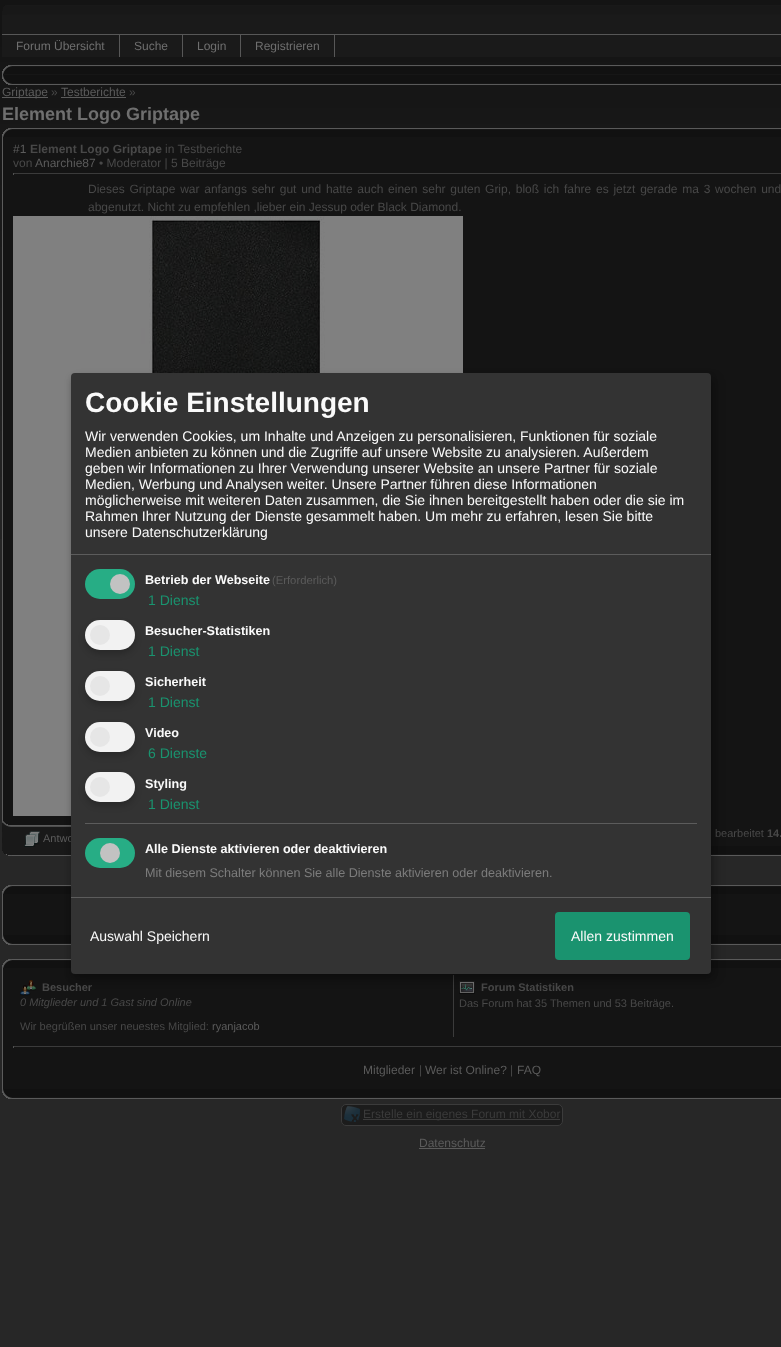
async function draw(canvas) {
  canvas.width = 781;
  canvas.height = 1347;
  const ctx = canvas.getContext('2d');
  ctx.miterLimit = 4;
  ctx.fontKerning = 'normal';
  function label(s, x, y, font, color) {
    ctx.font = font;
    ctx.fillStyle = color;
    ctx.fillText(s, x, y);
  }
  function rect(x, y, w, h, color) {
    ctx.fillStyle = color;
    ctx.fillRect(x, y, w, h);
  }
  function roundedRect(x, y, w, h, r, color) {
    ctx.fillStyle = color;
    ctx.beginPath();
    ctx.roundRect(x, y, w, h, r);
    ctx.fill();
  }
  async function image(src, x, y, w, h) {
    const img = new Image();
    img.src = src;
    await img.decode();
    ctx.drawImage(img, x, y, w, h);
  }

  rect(0, 0, 781, 1347, '#272727');
  await image('assets/img1.png', 0, 0, 781, 539);
  await image('assets/img2.png', 2, 5, 779, 10);
  rect(2, 15, 779, 42, '#1a1a1a');
  rect(2, 34, 779, 1, '#575757');
  rect(119, 35, 1, 22, '#575757');
  label('Forum Übersicht', 16, 50, '12px Liberation Sans', '#6f6f6f');
  rect(182, 35, 1, 22, '#575757');
  label('Suche', 134, 50, '12px Liberation Sans', '#6f6f6f');
  rect(240, 35, 1, 22, '#575757');
  label('Login', 197, 50, '12px Liberation Sans', '#6f6f6f');
  rect(334, 35, 1, 22, '#575757');
  label('Registrieren', 255, 50, '12px Liberation Sans', '#6f6f6f');
  await image('assets/img3.png', 2, 65, 779, 9);
  rect(2, 74, 1, 2, '#5c5c5c');
  await image('assets/img4.png', 2, 75, 779, 10);
  rect(2, 97, 46, 1, '#5b5b5b');
  label('Griptape', 2, 96, '12px Liberation Sans', '#5b5b5b');
  label('»', 51, 96, '12px Liberation Sans', '#484848');
  label('Testberichte', 61, 96, '12px Liberation Sans', '#5b5b5b');
  rect(61, 97, 65, 1, '#5b5b5b');
  label('»', 129, 96, '12px Liberation Sans', '#484848');
  label('Element Logo Griptape', 2, 120, 'bold 18px Liberation Sans', '#6f6f6f');
  await image('assets/img5.png', 2, 128, 779, 9);
  rect(3, 137, 778, 709, '#141414');
  rect(2, 137, 1, 684, '#5c5c5c');
  label('#1', 13, 153, '12px Liberation Sans', '#5b5b5b');
  label('Element Logo Griptape', 30, 153, 'bold 12px Liberation Sans', '#484848');
  label('in Testberichte', 165, 153, '12px Liberation Sans', '#484848');
  label('von', 13, 167, '12px Liberation Sans', '#484848');
  label('Anarchie87', 35, 167, '12px Liberation Sans', '#5b5b5b');
  label('• Moderator | 5 Beiträge', 99, 167, '12px Liberation Sans', '#484848');
  rect(13, 173, 768, 1, '#3b3b3b');
  rect(13, 173, 1, 2, '#505050');
  ctx.wordSpacing = '1.4px';
  label('Dieses Griptape war anfangs sehr gut und hatte auch einen sehr guten Grip, bloß ich fahre es jetzt gerade ma 3 wochen und', 88, 193, '12px Liberation Sans', '#484848');
  ctx.wordSpacing = '0px';
  label('abgenutzt. Nicht zu empfehlen ,lieber ein Jessup oder Black Diamond.', 88, 211, '12px Liberation Sans', '#484848');
  await image('assets/img6.png', 13, 216, 450, 600);
  await image('assets/img9.png', 6, 846, 775, 10);
  await image('assets/img7.png', 2, 821, 69, 34);
  await image('assets/img8.png', 24, 831, 16, 16);
  label('Antwo', 43, 842, '11px Liberation Sans', '#5b5b5b');
  label('bearbeitet', 715, 837, '11px Liberation Sans', '#484848');
  label('14.', 767, 837, 'bold 11px Liberation Sans', '#484848');
  await image('assets/img10.png', 2, 885, 779, 9);
  rect(3, 894, 778, 41, '#141414');
  rect(2, 894, 1, 42, '#5c5c5c');
  await image('assets/img11.png', 2, 935, 779, 10);
  await image('assets/img10.png', 2, 959, 779, 9);
  rect(3, 968, 778, 121, '#141414');
  rect(2, 968, 1, 122, '#5c5c5c');
  await image('assets/img12.png', 20, 980, 16, 16);
  label('Besucher', 42, 991, 'bold 11px Liberation Sans', '#484848');
  label('0 Mitglieder und 1 Gast sind Online', 20, 1006, 'italic 11px Liberation Sans', '#484848');
  label('Wir begrüßen unser neuestes Mitglied:', 20, 1030, '11px Liberation Sans', '#484848');
  label('ryanjacob', 212, 1030, '11px Liberation Sans', '#5b5b5b');
  rect(453, 975, 1, 62, '#3b3b3b');
  await image('assets/img13.png', 459, 981, 16, 13);
  label('Forum Statistiken', 481, 991, 'bold 11px Liberation Sans', '#484848');
  label('Das Forum hat 35 Themen und 53 Beiträge.', 459, 1007, '11px Liberation Sans', '#484848');
  rect(13, 1046, 768, 1, '#3b3b3b');
  rect(13, 1046, 1, 2, '#505050');
  label('Mitglieder', 363, 1074, '12px Liberation Sans', '#5b5b5b');
  label('|', 419, 1074, '12px Liberation Sans', '#484848');
  label('Wer ist Online?', 425, 1074, '12px Liberation Sans', '#5b5b5b');
  label('|', 510, 1074, '12px Liberation Sans', '#484848');
  label('FAQ', 517, 1074, '12px Liberation Sans', '#5b5b5b');
  await image('assets/img11.png', 2, 1089, 779, 10);
  ctx.fillStyle = '#1c1c1c';
  ctx.beginPath();
  ctx.roundRect(341.5, 1104.5, 221, 21, 4.5);
  ctx.fill();
  ctx.strokeStyle = '#3b3b3b';
  ctx.stroke();
  await image('assets/img14.png', 344, 1106, 16, 16);
  rect(363, 1119, 197, 1, '#3b3b3b');
  label('Erstelle ein eigenes Forum mit Xobor', 363, 1118, '12px Liberation Sans', '#3b3b3b');
  label('Datenschutz', 419, 1147, '12px Liberation Sans', '#5b5b5b');
  rect(419, 1148, 66, 1, '#5b5b5b');
  ctx.fillStyle = '#00000030';
  ctx.filter = 'blur(5px)';
  ctx.beginPath();
  ctx.roundRect(76, 378, 640, 601, 4);
  ctx.fill();
  ctx.filter = 'none';
  ctx.fillStyle = '#00000033';
  ctx.filter = 'blur(3px)';
  ctx.beginPath();
  ctx.roundRect(71, 377, 640, 601, 4);
  ctx.fill();
  ctx.filter = 'none';
  roundedRect(71, 373, 640, 601, 4, '#333');
  rect(71, 554, 640, 1, '#5c5c5c');
  label('Cookie Einstellungen', 85, 412, 'bold 28px Liberation Sans', '#fafafa');
  label('Wir verwenden Cookies, um Inhalte und Anzeigen zu personalisieren, Funktionen für soziale', 85, 441, '14px Liberation Sans', '#fafafa');
  label('Medien anbieten zu können und die Zugriffe auf unsere Website zu analysieren. Außerdem', 85, 457, '14px Liberation Sans', '#fafafa');
  label('geben wir Informationen zu Ihrer Verwendung unserer Website an unsere Partner für soziale', 85, 473, '14px Liberation Sans', '#fafafa');
  label('Medien, Werbung und Analysen weiter. Unsere Partner führen diese Informationen', 85, 489, '14px Liberation Sans', '#fafafa');
  label('möglicherweise mit weiteren Daten zusammen, die Sie ihnen bereitgestellt haben oder die sie im', 85, 505, '14px Liberation Sans', '#fafafa');
  label('Rahmen Ihrer Nutzung der Dienste gesammelt haben. Um mehr zu erfahren, lesen Sie bitte', 85, 521, '14px Liberation Sans', '#fafafa');
  label('unsere Datenschutzerklärung', 85, 537, '14px Liberation Sans', '#fafafa');
  roundedRect(85, 569, 50, 30, 15, '#27ad85');
  ctx.fillStyle = '#c2c2c2';
  ctx.beginPath();
  ctx.arc(120, 584, 10, 0, 2 * Math.PI);
  ctx.fill();
  label('Betrieb der Webseite', 145, 584, 'bold 12.6px Liberation Sans', '#fafafa');
  label('(Erforderlich)', 272, 584, '11.25px Liberation Sans', '#5b5b5b');
  label('1 Dienst', 148, 605, '14px Liberation Sans', '#1a936f');
  ctx.fillStyle = '#00000033';
  ctx.filter = 'blur(3px)';
  ctx.beginPath();
  ctx.roundRect(85, 624, 50, 30, 15);
  ctx.fill();
  ctx.filter = 'none';
  roundedRect(85, 620, 50, 30, 15, '#f2f2f2');
  ctx.fillStyle = '#e6e6e6';
  ctx.beginPath();
  ctx.arc(100, 635, 10, 0, 2 * Math.PI);
  ctx.fill();
  label('Besucher-Statistiken', 145, 635, 'bold 12.6px Liberation Sans', '#fafafa');
  label('1 Dienst', 148, 656, '14px Liberation Sans', '#1a936f');
  ctx.fillStyle = '#00000033';
  ctx.filter = 'blur(3px)';
  ctx.beginPath();
  ctx.roundRect(85, 675, 50, 30, 15);
  ctx.fill();
  ctx.filter = 'none';
  roundedRect(85, 671, 50, 30, 15, '#f2f2f2');
  ctx.fillStyle = '#e6e6e6';
  ctx.beginPath();
  ctx.arc(100, 686, 10, 0, 2 * Math.PI);
  ctx.fill();
  label('Sicherheit', 145, 686, 'bold 12.6px Liberation Sans', '#fafafa');
  label('1 Dienst', 148, 707, '14px Liberation Sans', '#1a936f');
  ctx.fillStyle = '#00000033';
  ctx.filter = 'blur(3px)';
  ctx.beginPath();
  ctx.roundRect(85, 726, 50, 30, 15);
  ctx.fill();
  ctx.filter = 'none';
  roundedRect(85, 722, 50, 30, 15, '#f2f2f2');
  ctx.fillStyle = '#e6e6e6';
  ctx.beginPath();
  ctx.arc(100, 737, 10, 0, 2 * Math.PI);
  ctx.fill();
  label('Video', 145, 737, 'bold 12.6px Liberation Sans', '#fafafa');
  label('6 Dienste', 148, 758, '14px Liberation Sans', '#1a936f');
  ctx.fillStyle = '#00000033';
  ctx.filter = 'blur(3px)';
  ctx.beginPath();
  ctx.roundRect(85, 776, 50, 30, 15);
  ctx.fill();
  ctx.filter = 'none';
  roundedRect(85, 772, 50, 30, 15, '#f2f2f2');
  ctx.fillStyle = '#e6e6e6';
  ctx.beginPath();
  ctx.arc(100, 787, 10, 0, 2 * Math.PI);
  ctx.fill();
  label('Styling', 145, 788, 'bold 12.6px Liberation Sans', '#fafafa');
  label('1 Dienst', 148, 809, '14px Liberation Sans', '#1a936f');
  rect(85, 823, 612, 1, '#5c5c5c');
  roundedRect(85, 838, 50, 30, 15, '#27ad85');
  ctx.fillStyle = '#c2c2c2';
  ctx.beginPath();
  ctx.arc(110, 853, 10, 0, 2 * Math.PI);
  ctx.fill();
  label('Alle Dienste aktivieren oder deaktivieren', 145, 853, 'bold 12.6px Liberation Sans', '#fafafa');
  label('Mit diesem Schalter können Sie alle Dienste aktivieren oder deaktivieren.', 145, 877, '12.6px Liberation Sans', '#7c7c7c');
  rect(71, 897, 640, 1, '#5c5c5c');
  label('Auswahl Speichern', 90, 941, '14px Liberation Sans', '#fafafa');
  roundedRect(555, 912, 135, 48, 4, '#1a936f');
  label('Allen zustimmen', 571, 941, '14px Liberation Sans', '#fafafa');
}

draw(document.querySelector('canvas'));
